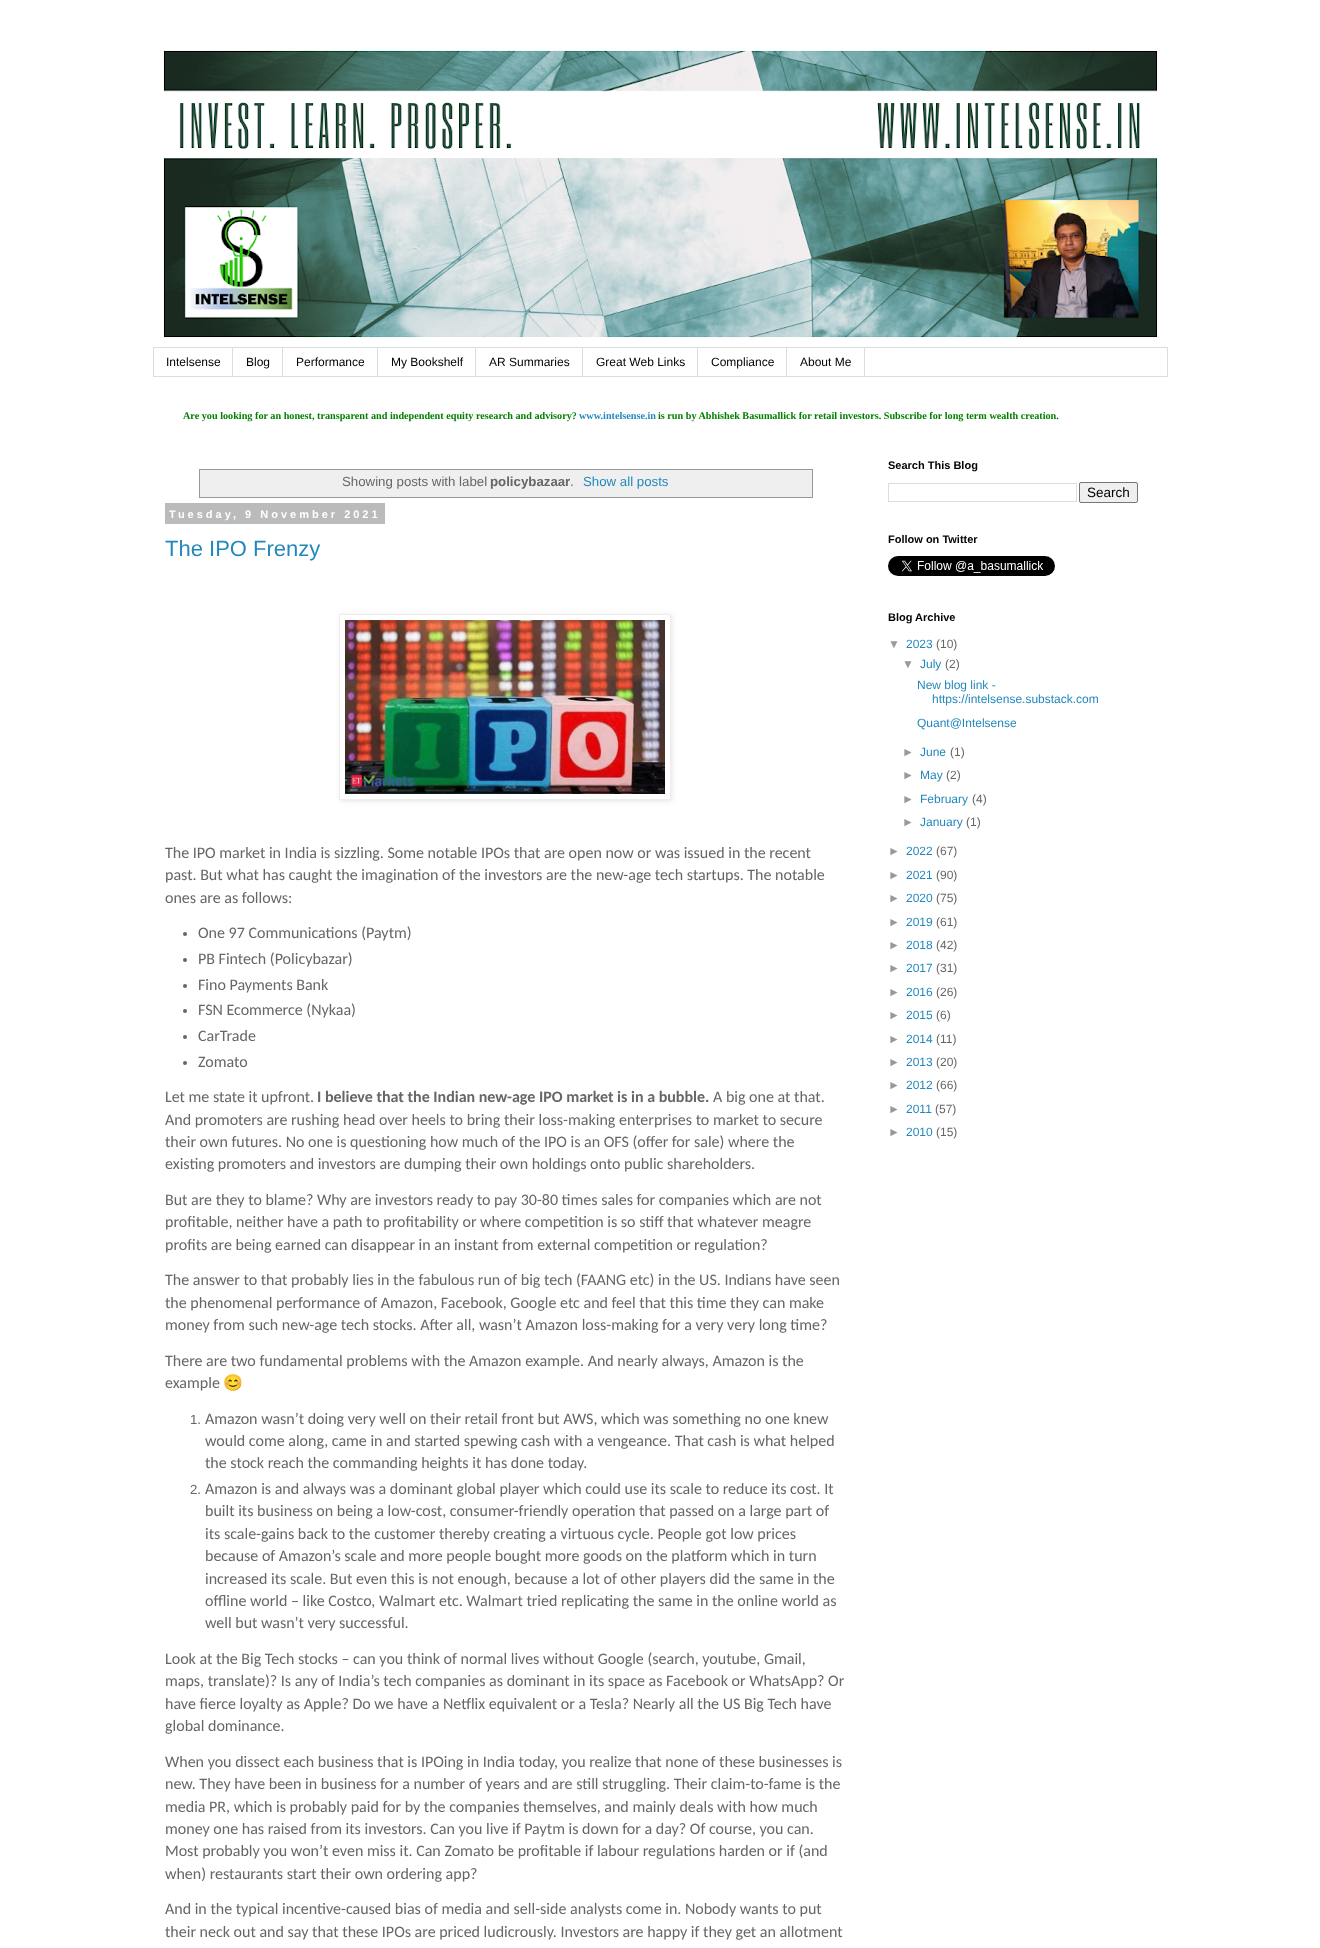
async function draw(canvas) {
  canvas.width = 1320;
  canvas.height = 1948;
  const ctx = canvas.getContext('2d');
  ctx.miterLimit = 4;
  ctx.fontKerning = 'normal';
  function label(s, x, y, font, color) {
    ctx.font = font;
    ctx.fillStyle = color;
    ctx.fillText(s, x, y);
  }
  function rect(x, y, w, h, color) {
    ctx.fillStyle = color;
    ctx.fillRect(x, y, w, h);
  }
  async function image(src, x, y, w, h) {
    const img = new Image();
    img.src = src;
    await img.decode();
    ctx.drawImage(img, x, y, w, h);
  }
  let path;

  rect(0, 0, 1320, 1948, '#fff');
  await image('assets/img1.png', 163, 50, 995, 288);
  ctx.strokeStyle = '#ddd';
  ctx.strokeRect(153.5, 347.5, 1014, 29);
  rect(232, 348, 1, 28, '#ddd');
  label('Intelsense', 166, 366, '12px Liberation Sans', '#000');
  rect(282, 348, 1, 28, '#ddd');
  label('Blog', 246, 366, '12px Liberation Sans', '#000');
  rect(377, 348, 1, 28, '#ddd');
  label('Performance', 296, 366, '12px Liberation Sans', '#000');
  rect(475, 348, 1, 28, '#ddd');
  label('My Bookshelf', 391, 366, '12px Liberation Sans', '#000');
  rect(582, 348, 1, 28, '#ddd');
  label('AR Summaries', 489, 366, '12px Liberation Sans', '#000');
  rect(697, 348, 1, 28, '#ddd');
  label('Great Web Links', 596, 366, '12px Liberation Sans', '#000');
  rect(786, 348, 1, 28, '#ddd');
  label('Compliance', 711, 366, '12px Liberation Sans', '#000');
  rect(864, 348, 1, 28, '#ddd');
  label('About Me', 800, 366, '12px Liberation Sans', '#000');
  label('Are you looking for an honest, transparent and independent equity research and advisory?', 183, 419, 'bold 10.2px Liberation Serif', '#008000');
  label('www.intelsense.in', 579, 419, 'bold 10.2px Liberation Serif', '#28b');
  label('is run by Abhishek Basumallick for retail investors. Subscribe for long term wealth creation.', 658, 419, 'bold 10.2px Liberation Serif', '#008000');
  ctx.strokeStyle = '#999';
  ctx.strokeRect(199.5, 469.5, 613, 28);
  rect(200, 470, 612, 27, '#efefef');
  label('Showing posts with label', 342, 486, '13.25px Liberation Sans', '#666');
  label('policybazaar', 490, 486, 'bold 13.25px Liberation Sans', '#666');
  label('.', 570, 486, '13.25px Liberation Sans', '#666');
  label('Show all posts', 583, 486, '13.25px Liberation Sans', '#28b');
  rect(165, 503, 220, 21, '#bbb');
  ctx.letterSpacing = '3px';
  label('Tuesday, 9 November 2021', 169, 518, 'bold 11px Liberation Sans', '#fff');
  ctx.letterSpacing = '0px';
  label('The IPO Frenzy', 165, 556, '22px Liberation Sans', '#28b');
  ctx.save();
  path = new Path2D('M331 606H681V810H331ZM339 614H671V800H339Z');
  ctx.clip(path, 'evenodd');
  ctx.fillStyle = '#0000001a';
  ctx.filter = 'blur(2.5px)';
  ctx.beginPath();
  ctx.rect(340, 615, 332, 186);
  ctx.fill();
  ctx.filter = 'none';
  ctx.restore();
  ctx.strokeStyle = '#eee';
  ctx.strokeRect(339.5, 614.5, 331, 185);
  await image('assets/img2.png', 345, 620, 320, 174);
  label('The IPO market in India is sizzling. Some notable IPOs that are open now or was issued in the recent', 165, 858, '16px Carlito', '#666');
  label('past. But what has caught the imagination of the investors are the new-age tech startups. The notable', 165, 880, '16px Carlito', '#666');
  label('ones are as follows:', 165, 903, '16px Carlito', '#666');
  ctx.beginPath();
  ctx.arc(185, 934, 2, 0, 2 * Math.PI);
  ctx.fill();
  label('One 97 Communications (Paytm)', 198, 938, '16px Carlito', '#666');
  ctx.beginPath();
  ctx.arc(185, 960, 2, 0, 2 * Math.PI);
  ctx.fill();
  label('PB Fintech (Policybazar)', 198, 964, '16px Carlito', '#666');
  ctx.beginPath();
  ctx.arc(185, 986, 2, 0, 2 * Math.PI);
  ctx.fill();
  label('Fino Payments Bank', 198, 990, '16px Carlito', '#666');
  ctx.beginPath();
  ctx.arc(185, 1011, 2, 0, 2 * Math.PI);
  ctx.fill();
  label('FSN Ecommerce (Nykaa)', 198, 1015, '16px Carlito', '#666');
  ctx.beginPath();
  ctx.arc(185, 1037, 2, 0, 2 * Math.PI);
  ctx.fill();
  label('CarTrade', 198, 1041, '16px Carlito', '#666');
  ctx.beginPath();
  ctx.arc(185, 1063, 2, 0, 2 * Math.PI);
  ctx.fill();
  label('Zomato', 198, 1067, '16px Carlito', '#666');
  label('Let me state it upfront.', 165, 1102, '16px Carlito', '#666');
  label('I believe that the Indian new-age IPO market is in a bubble.', 317, 1102, 'bold 16px Carlito', '#666');
  label('A big one at that.', 713, 1102, '16px Carlito', '#666');
  label('And promoters are rushing head over heels to bring their loss-making enterprises to market to secure', 165, 1125, '16px Carlito', '#666');
  label('their own futures. No one is questioning how much of the IPO is an OFS (offer for sale) where the', 165, 1147, '16px Carlito', '#666');
  label('existing promoters and investors are dumping their own holdings onto public shareholders.', 165, 1169, '16px Carlito', '#666');
  label('But are they to blame? Why are investors ready to pay 30-80 times sales for companies which are not', 165, 1205, '16px Carlito', '#666');
  label('profitable, neither have a path to profitability or where competition is so stiff that whatever meagre', 165, 1227, '16px Carlito', '#666');
  label('profits are being earned can disappear in an instant from external competition or regulation?', 165, 1250, '16px Carlito', '#666');
  label('The answer to that probably lies in the fabulous run of big tech (FAANG etc) in the US. Indians have seen', 165, 1285, '16px Carlito', '#666');
  label('the phenomenal performance of Amazon, Facebook, Google etc and feel that this time they can make', 165, 1308, '16px Carlito', '#666');
  label('money from such new-age tech stocks. After all, wasn’t Amazon loss-making for a very very long time?', 165, 1330, '16px Carlito', '#666');
  label('There are two fundamental problems with the Amazon example. And nearly always, Amazon is the', 165, 1366, '16px Carlito', '#666');
  label('example', 165, 1388, '16px Carlito', '#666');
  label('😊', 223, 1388, '16px Noto Color Emoji', '#666');
  label('1.', 190, 1424, '13.25px Liberation Sans', '#666');
  label('Amazon wasn’t doing very well on their retail front but AWS, which was something no one knew', 205, 1424, '16px Carlito', '#666');
  label('would come along, came in and started spewing cash with a vengeance. That cash is what helped', 205, 1446, '16px Carlito', '#666');
  label('the stock reach the commanding heights it has done today.', 205, 1468, '16px Carlito', '#666');
  label('2.', 190, 1494, '13.25px Liberation Sans', '#666');
  label('Amazon is and always was a dominant global player which could use its scale to reduce its cost. It', 205, 1494, '16px Carlito', '#666');
  label('built its business on being a low-cost, consumer-friendly operation that passed on a large part of', 205, 1516, '16px Carlito', '#666');
  label('its scale-gains back to the customer thereby creating a virtuous cycle. People got low prices', 205, 1539, '16px Carlito', '#666');
  label('because of Amazon’s scale and more people bought more goods on the platform which in turn', 205, 1561, '16px Carlito', '#666');
  label('increased its scale. But even this is not enough, because a lot of other players did the same in the', 205, 1584, '16px Carlito', '#666');
  label('offline world – like Costco, Walmart etc. Walmart tried replicating the same in the online world as', 205, 1606, '16px Carlito', '#666');
  label('well but wasn’t very successful.', 205, 1628, '16px Carlito', '#666');
  label('Look at the Big Tech stocks – can you think of normal lives without Google (search, youtube, Gmail,', 165, 1664, '16px Carlito', '#666');
  label('maps, translate)? Is any of India’s tech companies as dominant in its space as Facebook or WhatsApp? Or', 165, 1686, '16px Carlito', '#666');
  label('have fierce loyalty as Apple? Do we have a Netflix equivalent or a Tesla? Nearly all the US Big Tech have', 165, 1709, '16px Carlito', '#666');
  label('global dominance.', 165, 1731, '16px Carlito', '#666');
  label('When you dissect each business that is IPOing in India today, you realize that none of these businesses is', 165, 1767, '16px Carlito', '#666');
  label('new. They have been in business for a number of years and are still struggling. Their claim-to-fame is the', 165, 1789, '16px Carlito', '#666');
  label('media PR, which is probably paid for by the companies themselves, and mainly deals with how much', 165, 1812, '16px Carlito', '#666');
  label('money one has raised from its investors. Can you live if Paytm is down for a day? Of course, you can.', 165, 1834, '16px Carlito', '#666');
  label('Most probably you won’t even miss it. Can Zomato be profitable if labour regulations harden or if (and', 165, 1856, '16px Carlito', '#666');
  label('when) restaurants start their own ordering app?', 165, 1879, '16px Carlito', '#666');
  label('And in the typical incentive-caused bias of media and sell-side analysts come in. Nobody wants to put', 165, 1914, '16px Carlito', '#666');
  label('their neck out and say that these IPOs are priced ludicrously. Investors are happy if they get an allotment', 165, 1937, '16px Carlito', '#666');
  label('Search This Blog', 888, 469, 'bold 11px Liberation Sans', '#000');
  ctx.strokeStyle = '#ddd';
  ctx.strokeRect(888.5, 483.5, 188, 18);
  ctx.fillStyle = '#efefef';
  ctx.beginPath();
  ctx.roundRect(1079.5, 482.5, 58, 20, 1.5);
  ctx.fill();
  ctx.strokeStyle = '#767676';
  ctx.stroke();
  label('Search', 1087, 497, '13.5px Liberation Sans', '#000');
  label('Follow on Twitter', 888, 543, 'bold 11px Liberation Sans', '#000');
  await image('assets/img3.png', 888, 556, 167, 20);
  label('Blog Archive', 888, 621, 'bold 11px Liberation Sans', '#000');
  label('▼', 888, 648, '12px Liberation Sans', '#999');
  label('2023', 906, 648, '12px Liberation Sans', '#28b');
  label('(10)', 936, 648, '12px Liberation Sans', '#666');
  label('▼', 902, 668, '12px Liberation Sans', '#999');
  label('July', 920, 668, '12px Liberation Sans', '#28b');
  label('(2)', 945, 668, '12px Liberation Sans', '#666');
  label('New blog link -', 917, 689, '12px Liberation Sans', '#28b');
  label('https://intelsense.substack.com', 932, 703, '12px Liberation Sans', '#28b');
  label('Quant@Intelsense', 917, 727, '12px Liberation Sans', '#28b');
  label('►', 902, 756, '12px Liberation Sans', '#999');
  label('June', 920, 756, '12px Liberation Sans', '#28b');
  label('(1)', 950, 756, '12px Liberation Sans', '#666');
  label('►', 902, 779, '12px Liberation Sans', '#999');
  label('May', 920, 779, '12px Liberation Sans', '#28b');
  label('(2)', 946, 779, '12px Liberation Sans', '#666');
  label('►', 902, 803, '12px Liberation Sans', '#999');
  label('February', 920, 803, '12px Liberation Sans', '#28b');
  label('(4)', 972, 803, '12px Liberation Sans', '#666');
  label('►', 902, 826, '12px Liberation Sans', '#999');
  label('January', 920, 826, '12px Liberation Sans', '#28b');
  label('(1)', 966, 826, '12px Liberation Sans', '#666');
  label('►', 888, 855, '12px Liberation Sans', '#999');
  label('2022', 906, 855, '12px Liberation Sans', '#28b');
  label('(67)', 936, 855, '12px Liberation Sans', '#666');
  label('►', 888, 879, '12px Liberation Sans', '#999');
  label('2021', 906, 879, '12px Liberation Sans', '#28b');
  label('(90)', 936, 879, '12px Liberation Sans', '#666');
  label('►', 888, 902, '12px Liberation Sans', '#999');
  label('2020', 906, 902, '12px Liberation Sans', '#28b');
  label('(75)', 936, 902, '12px Liberation Sans', '#666');
  label('►', 888, 926, '12px Liberation Sans', '#999');
  label('2019', 906, 926, '12px Liberation Sans', '#28b');
  label('(61)', 936, 926, '12px Liberation Sans', '#666');
  label('►', 888, 949, '12px Liberation Sans', '#999');
  label('2018', 906, 949, '12px Liberation Sans', '#28b');
  label('(42)', 936, 949, '12px Liberation Sans', '#666');
  label('►', 888, 972, '12px Liberation Sans', '#999');
  label('2017', 906, 972, '12px Liberation Sans', '#28b');
  label('(31)', 936, 972, '12px Liberation Sans', '#666');
  label('►', 888, 996, '12px Liberation Sans', '#999');
  label('2016', 906, 996, '12px Liberation Sans', '#28b');
  label('(26)', 936, 996, '12px Liberation Sans', '#666');
  label('►', 888, 1019, '12px Liberation Sans', '#999');
  label('2015', 906, 1019, '12px Liberation Sans', '#28b');
  label('(6)', 936, 1019, '12px Liberation Sans', '#666');
  label('►', 888, 1043, '12px Liberation Sans', '#999');
  label('2014', 906, 1043, '12px Liberation Sans', '#28b');
  label('(11)', 936, 1043, '12px Liberation Sans', '#666');
  label('►', 888, 1066, '12px Liberation Sans', '#999');
  label('2013', 906, 1066, '12px Liberation Sans', '#28b');
  label('(20)', 936, 1066, '12px Liberation Sans', '#666');
  label('►', 888, 1089, '12px Liberation Sans', '#999');
  label('2012', 906, 1089, '12px Liberation Sans', '#28b');
  label('(66)', 936, 1089, '12px Liberation Sans', '#666');
  label('►', 888, 1113, '12px Liberation Sans', '#999');
  label('2011', 906, 1113, '12px Liberation Sans', '#28b');
  label('(57)', 935, 1113, '12px Liberation Sans', '#666');
  label('►', 888, 1136, '12px Liberation Sans', '#999');
  label('2010', 906, 1136, '12px Liberation Sans', '#28b');
  label('(15)', 936, 1136, '12px Liberation Sans', '#666');
}

draw(document.querySelector('canvas'));
